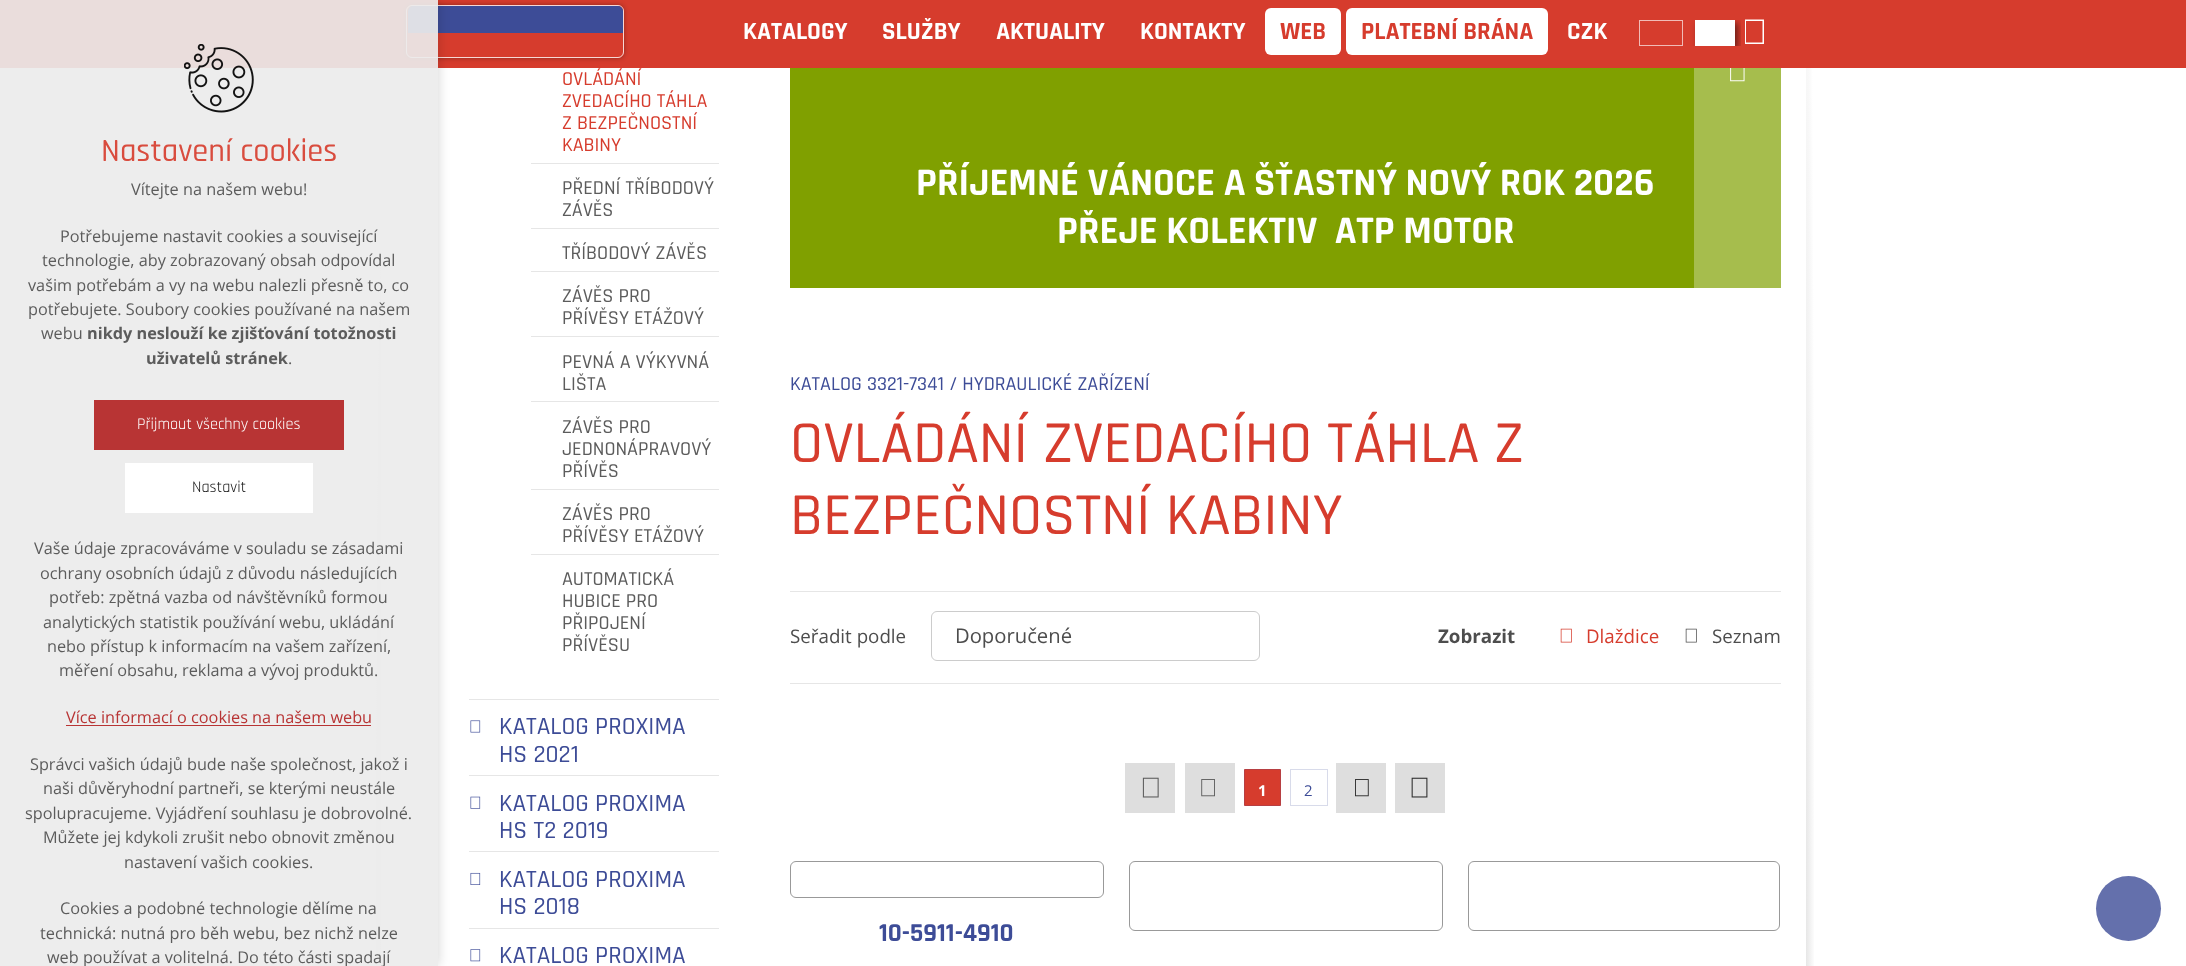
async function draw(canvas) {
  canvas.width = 2186;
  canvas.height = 966;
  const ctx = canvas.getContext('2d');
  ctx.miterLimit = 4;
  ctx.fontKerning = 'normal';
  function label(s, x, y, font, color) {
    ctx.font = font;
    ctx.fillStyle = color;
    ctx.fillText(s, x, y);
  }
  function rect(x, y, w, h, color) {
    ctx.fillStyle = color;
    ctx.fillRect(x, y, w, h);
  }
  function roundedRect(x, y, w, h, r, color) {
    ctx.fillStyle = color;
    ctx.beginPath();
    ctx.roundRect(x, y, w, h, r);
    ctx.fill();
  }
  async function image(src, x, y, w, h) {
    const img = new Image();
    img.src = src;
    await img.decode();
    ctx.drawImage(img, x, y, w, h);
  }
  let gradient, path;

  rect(0, 0, 2186, 966, '#fff');
  rect(0, 0, 2186, 68, '#d63c2d');
  ctx.save();
  path = new Path2D('M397 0H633V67H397ZM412 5H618C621.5 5 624 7.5 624 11V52C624 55.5 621.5 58 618 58H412C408.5 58 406 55.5 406 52V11C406 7.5 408.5 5 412 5Z');
  ctx.clip(path, 'evenodd');
  ctx.fillStyle = '#00000059';
  ctx.filter = 'blur(2.5px)';
  ctx.beginPath();
  ctx.roundRect(406, 5, 218, 53, 6);
  ctx.fill();
  ctx.filter = 'none';
  ctx.restore();
  ctx.beginPath();
  ctx.roundRect(406.5, 5.5, 217, 52, 5.5);
  ctx.strokeStyle = '#ffffffcc';
  ctx.stroke();
  ctx.fillStyle = '#3d4c97';
  ctx.beginPath();
  ctx.roundRect(408, 6, 215, 27, [5, 5, 0, 0]);
  ctx.fill();
  label('KATALOGY', 743, 39, 'bold 25px Rajdhani', '#fff');
  label('SLUŽBY', 882, 39, 'bold 25px Rajdhani', '#fff');
  label('AKTUALITY', 996, 39, 'bold 25px Rajdhani', '#fff');
  label('KONTAKTY', 1140, 39, 'bold 25px Rajdhani', '#fff');
  roundedRect(1265, 8, 76, 47, 6, '#fff');
  label('WEB', 1280, 39, 'bold 25px Rajdhani', '#d63c2d');
  roundedRect(1346, 8, 202, 47, 6, '#fff');
  label('PLATEBNÍ BRÁNA', 1361, 39, 'bold 25px Rajdhani', '#d63c2d');
  label('CZK', 1567, 39, 'bold 25px Rajdhani', '#fff');
  ctx.strokeStyle = '#f1bbb6';
  ctx.strokeRect(1639.5, 20.5, 43, 25);
  ctx.save();
  ctx.beginPath();
  ctx.rect(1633, 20, 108, 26);
  ctx.clip();
  ctx.fillStyle = '#00000080';
  ctx.filter = 'blur(3px)';
  ctx.beginPath();
  ctx.rect(1698, 23, 40, 26);
  ctx.fill();
  ctx.filter = 'none';
  ctx.restore();
  rect(1695, 20, 40, 26, '#fff');
  path = new Path2D('M1745 19.5H1764V44H1745ZM1746 21V42.5H1762.5V21Z');
  ctx.fill(path);
  gradient = ctx.createRadialGradient(381, 6.67, 0, 381, 6.67, 18);
  gradient.addColorStop(0, '#e6e6e6');
  gradient.addColorStop(0.5, '#fff');
  gradient.addColorStop(1, '#fff');
  ctx.fillStyle = gradient;
  ctx.beginPath();
  ctx.rect(373, 68, 8, 898);
  ctx.save();
  ctx.clip();
  ctx.scale(1, 2693 / 18);
  ctx.fillRect(0, 0, 2186, 7);
  ctx.restore();
  ctx.save();
  path = new Path2D('M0 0H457V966H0ZM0 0H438V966H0Z');
  ctx.clip(path, 'evenodd');
  ctx.fillStyle = '#0101012e';
  ctx.filter = 'blur(6px)';
  ctx.beginPath();
  ctx.rect(0, 0, 438, 966);
  ctx.fill();
  ctx.filter = 'none';
  ctx.restore();
  rect(0, 0, 438, 966, '#ebebebeb');
  await image('assets/img1.png', 184, 44, 70, 69);
  label('Nastavení cookies', 101, 161, '500 32.5px Rajdhani', '#d94c3e');
  label('Vítejte na našem webu!', 131, 195, '16.25px Open Sans', '#5c5c5c');
  label('Potřebujeme nastavit cookies a související', 60, 242, '16.25px Open Sans', '#5c5c5c');
  label('technologie, aby zobrazovaný obsah odpovídal', 42, 266, '16.25px Open Sans', '#5c5c5c');
  label('vašim potřebám a vy na webu nalezli přesně to, co', 28, 291, '16.25px Open Sans', '#5c5c5c');
  label('potřebujete. Soubory cookies používané na našem', 28, 315, '16.25px Open Sans', '#5c5c5c');
  label('webu', 41, 339, '16.25px Open Sans', '#5c5c5c');
  label('nikdy neslouží ke zjišťování totožnosti', 87, 339, 'bold 16.25px Open Sans', '#5c5c5c');
  label('uživatelů stránek', 146, 364, 'bold 16.25px Open Sans', '#5c5c5c');
  label('.', 288, 364, '16.25px Open Sans', '#5c5c5c');
  rect(94, 400, 250, 50, '#b83434');
  label('Přijmout všechny cookies', 137, 429, '16.25px Rajdhani', '#fff');
  rect(125, 463, 188, 50, '#fff');
  label('Nastavit', 192, 492, '16.25px Rajdhani', '#141414');
  label('Vaše údaje zpracováváme v souladu se zásadami', 34, 554, '16.25px Open Sans', '#5c5c5c');
  label('ochrany osobních údajů z důvodu následujících', 40, 579, '16.25px Open Sans', '#5c5c5c');
  label('potřeb: zpětná vazba od návštěvníků formou', 49, 603, '16.25px Open Sans', '#5c5c5c');
  label('analytických statistik používání webu, ukládání', 43, 628, '16.25px Open Sans', '#5c5c5c');
  label('nebo přístup k informacím na vašem zařízení,', 47, 652, '16.25px Open Sans', '#5c5c5c');
  label('měření obsahu, reklama a vývoj produktů.', 59, 676, '16.25px Open Sans', '#5c5c5c');
  label('Více informací o cookies na našem webu', 66, 723, '16.25px Open Sans', '#b83434');
  rect(66, 725, 305, 1, '#b83434');
  label('Správci vašich údajů bude naše společnost, jakož i', 30, 770, '16.25px Open Sans', '#5c5c5c');
  label('naši důvěryhodní partneři, se kterými neustále', 43, 794, '16.25px Open Sans', '#5c5c5c');
  label('spolupracujeme. Vyjádření souhlasu je dobrovolné.', 25, 819, '16.25px Open Sans', '#5c5c5c');
  label('Můžete jej kdykoli zrušit nebo obnovit změnou', 43, 843, '16.25px Open Sans', '#5c5c5c');
  label('nastavení vašich cookies.', 124, 868, '16.25px Open Sans', '#5c5c5c');
  label('Cookies a podobné technologie dělíme na', 60, 914, '16.25px Open Sans', '#5c5c5c');
  label('technická: nutná pro běh webu, bez nichž nelze', 40, 939, '16.25px Open Sans', '#5c5c5c');
  label('web používat a volitelná. Do této části spadají', 47, 963, '16.25px Open Sans', '#5c5c5c');
  rect(469, 699, 250, 1, '#e6e6e6');
  rect(531, 163, 188, 1, '#e6e6e6');
  label('OVLÁDÁNÍ', 562, 85, '500 20px Rajdhani', '#d63c2d');
  label('ZVEDACÍHO TÁHLA', 562, 107, '500 20px Rajdhani', '#d63c2d');
  label('Z BEZPEČNOSTNÍ', 562, 129, '500 20px Rajdhani', '#d63c2d');
  label('KABINY', 562, 151, '500 20px Rajdhani', '#d63c2d');
  rect(531, 228, 188, 1, '#e6e6e6');
  label('PŘEDNÍ TŘÍBODOVÝ', 562, 194, '500 20px Rajdhani', '#5c5c5c');
  label('ZÁVĚS', 562, 216, '500 20px Rajdhani', '#5c5c5c');
  rect(531, 271, 188, 1, '#e6e6e6');
  label('TŘÍBODOVÝ ZÁVĚS', 562, 259, '500 20px Rajdhani', '#5c5c5c');
  rect(531, 336, 188, 1, '#e6e6e6');
  label('ZÁVĚS PRO', 562, 302, '500 20px Rajdhani', '#5c5c5c');
  label('PŘÍVĚSY ETÁŽOVÝ', 562, 324, '500 20px Rajdhani', '#5c5c5c');
  rect(531, 401, 188, 1, '#e6e6e6');
  label('PEVNÁ A VÝKYVNÁ', 562, 368, '500 20px Rajdhani', '#5c5c5c');
  label('LIŠTA', 562, 390, '500 20px Rajdhani', '#5c5c5c');
  rect(531, 489, 188, 1, '#e6e6e6');
  label('ZÁVĚS PRO', 562, 433, '500 20px Rajdhani', '#5c5c5c');
  label('JEDNONÁPRAVOVÝ', 562, 455, '500 20px Rajdhani', '#5c5c5c');
  label('PŘÍVĚS', 562, 477, '500 20px Rajdhani', '#5c5c5c');
  rect(531, 554, 188, 1, '#e6e6e6');
  label('ZÁVĚS PRO', 562, 520, '500 20px Rajdhani', '#5c5c5c');
  label('PŘÍVĚSY ETÁŽOVÝ', 562, 542, '500 20px Rajdhani', '#5c5c5c');
  label('AUTOMATICKÁ', 562, 585, '500 20px Rajdhani', '#5c5c5c');
  label('HUBICE PRO', 562, 607, '500 20px Rajdhani', '#5c5c5c');
  label('PŘIPOJENÍ', 562, 629, '500 20px Rajdhani', '#5c5c5c');
  label('PŘÍVĚSU', 562, 651, '500 20px Rajdhani', '#5c5c5c');
  rect(469, 775, 250, 1, '#e6e6e6');
  await image('assets/img2.png', 470, 720, 11, 13);
  label('KATALOG PROXIMA', 499, 734, '500 25px Rajdhani', '#3d4c97');
  label('HS 2021', 499, 762, '500 25px Rajdhani', '#3d4c97');
  rect(469, 851, 250, 1, '#e6e6e6');
  await image('assets/img3.png', 470, 796, 11, 13);
  label('KATALOG PROXIMA', 499, 811, '500 25px Rajdhani', '#3d4c97');
  label('HS T2 2019', 499, 838, '500 25px Rajdhani', '#3d4c97');
  rect(469, 928, 250, 1, '#e6e6e6');
  await image('assets/img4.png', 470, 872, 11, 13);
  label('KATALOG PROXIMA', 499, 887, '500 25px Rajdhani', '#3d4c97');
  label('HS 2018', 499, 914, '500 25px Rajdhani', '#3d4c97');
  await image('assets/img5.png', 470, 949, 11, 13);
  label('KATALOG PROXIMA', 499, 963, '500 25px Rajdhani', '#3d4c97');
  gradient = ctx.createLinearGradient(1286, -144, 1286, 288);
  gradient.addColorStop(0, '#749000');
  gradient.addColorStop(0.5, '#80a000');
  gradient.addColorStop(1, '#80a000');
  ctx.fillStyle = gradient;
  ctx.fillRect(790, 68, 904, 220);
  gradient = ctx.createLinearGradient(1286, -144, 1286, 288);
  gradient.addColorStop(0, '#9eb14d');
  gradient.addColorStop(0.5, '#a6bd4d');
  gradient.addColorStop(1, '#a6bd4d');
  ctx.fillStyle = gradient;
  ctx.fillRect(1694, 68, 87, 220);
  await image('assets/img6.png', 1730, 68, 15, 14);
  label('PŘÍJEMNÉ VÁNOCE A ŠŤASTNÝ NOVÝ ROK 2026', 916, 195, 'bold 39.4px Rajdhani', '#fff');
  label('PŘEJE KOLEKTIV  ATP MOTOR', 1057, 243, 'bold 39.4px Rajdhani', '#fff');
  label('KATALOG 3321-7341 / HYDRAULICKÉ ZAŘÍZENÍ', 790, 390, '500 20px Rajdhani', '#3d4c97');
  label('OVLÁDÁNÍ ZVEDACÍHO TÁHLA Z', 790, 462, '500 60px Rajdhani', '#d63c2d');
  label('BEZPEČNOSTNÍ KABINY', 790, 534, '500 60px Rajdhani', '#d63c2d');
  rect(790, 591, 991, 1, '#e6e6e6');
  rect(790, 683, 991, 1, '#e6e6e6');
  label('Seřadit podle', 790, 643, '18.75px Open Sans', '#4d4d4d');
  ctx.beginPath();
  ctx.roundRect(931.5, 611.5, 328, 49, 5.5);
  ctx.strokeStyle = '#ccc';
  ctx.stroke();
  label('Doporučené', 955, 643, '20.25px Open Sans', '#4d4d4d');
  label('Zobrazit', 1438, 643, 'bold 18.75px Open Sans', '#4d4d4d');
  await image('assets/img7.png', 1560, 628, 12, 15);
  label('Dlaždice', 1586, 643, '18.75px Open Sans', '#d63c2d');
  await image('assets/img8.png', 1685, 628, 12, 15);
  label('Seznam', 1712, 643, '18.75px Open Sans', '#4d4d4d');
  rect(1125, 763, 50, 50, '#dedede');
  await image('assets/img9.png', 1142, 777, 17, 21);
  rect(1185, 763, 50, 50, '#dedede');
  await image('assets/img10.png', 1201, 779, 14, 18);
  ctx.fillStyle = '#d63c2d';
  ctx.beginPath();
  ctx.rect(1244.5, 769.5, 36, 36);
  ctx.fill();
  ctx.strokeStyle = '#b73f42';
  ctx.stroke();
  label('1', 1258, 796, 'bold 15px Open Sans', '#fff');
  ctx.strokeStyle = '#d8dbea';
  ctx.strokeRect(1290.5, 769.5, 37, 36);
  label('2', 1304, 796, '15px Open Sans', '#3d4c97');
  rect(1336, 763, 50, 50, '#dedede');
  await image('assets/img11.png', 1355, 779, 14, 18);
  rect(1395, 763, 50, 50, '#dedede');
  await image('assets/img12.png', 1411, 777, 17, 21);
  ctx.beginPath();
  ctx.roundRect(790.5, 861.5, 313, 36, 5.5);
  ctx.strokeStyle = '#999';
  ctx.stroke();
  label('10-5911-4910', 879, 941, 'bold 26.25px Rajdhani', '#3d4c97');
  ctx.beginPath();
  ctx.roundRect(1129.5, 861.5, 313, 69, 5.5);
  ctx.stroke();
  ctx.beginPath();
  ctx.roundRect(1468.5, 861.5, 311, 69, 5.5);
  ctx.stroke();
  gradient = ctx.createRadialGradient(1806, 6.67, 0, 1806, 6.67, 18);
  gradient.addColorStop(0, '#e6e6e6');
  gradient.addColorStop(0.5, '#fff');
  gradient.addColorStop(1, '#fff');
  ctx.fillStyle = gradient;
  ctx.beginPath();
  ctx.rect(1806, 68, 8, 898);
  ctx.save();
  ctx.clip();
  ctx.scale(1, 2693 / 18);
  ctx.fillRect(0, 0, 2186, 7);
  ctx.restore();
  ctx.fillStyle = '#6470ac';
  ctx.beginPath();
  ctx.arc(2128.5, 908.5, 32.5, 0, 2 * Math.PI);
  ctx.fill();
}

draw(document.querySelector('canvas'));
